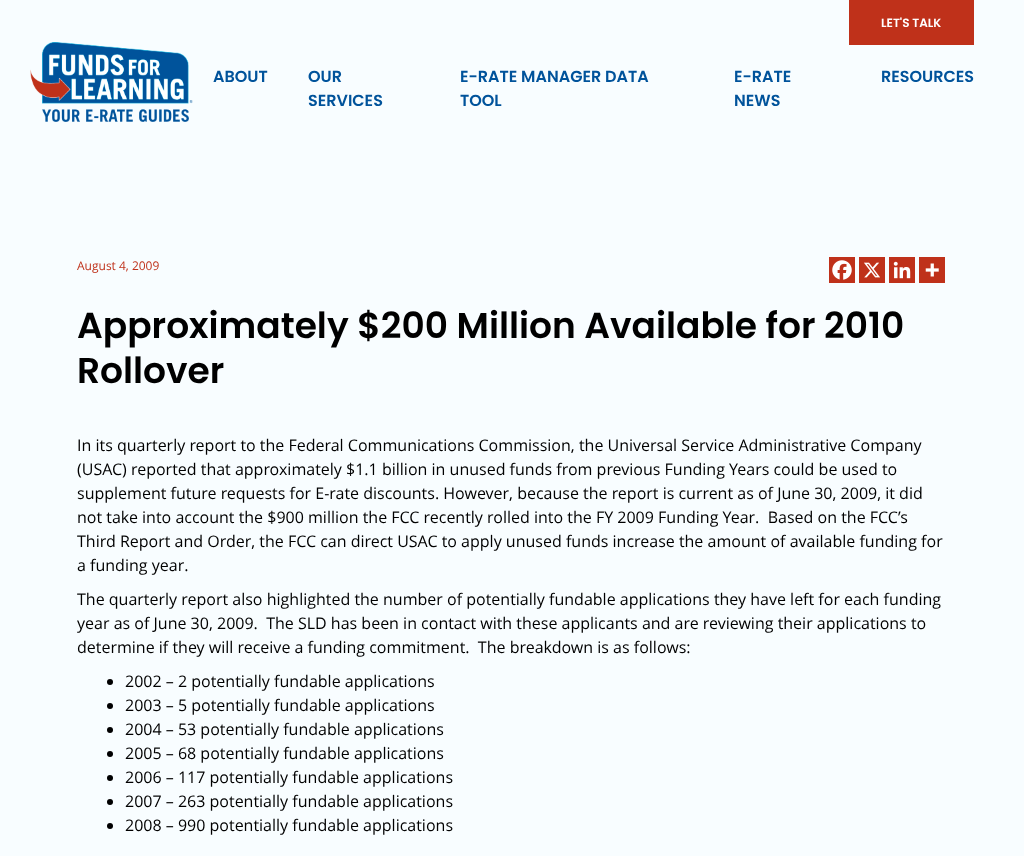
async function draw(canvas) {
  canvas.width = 1024;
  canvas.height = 856;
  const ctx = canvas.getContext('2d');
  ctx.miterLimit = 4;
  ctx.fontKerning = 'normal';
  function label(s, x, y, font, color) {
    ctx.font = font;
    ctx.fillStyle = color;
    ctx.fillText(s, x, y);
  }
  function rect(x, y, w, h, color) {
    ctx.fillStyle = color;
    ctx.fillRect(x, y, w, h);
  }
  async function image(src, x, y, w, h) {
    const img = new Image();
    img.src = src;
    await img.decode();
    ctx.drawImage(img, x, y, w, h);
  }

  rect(0, 0, 1024, 856, '#f8fdff');
  rect(849, 0, 125, 45, '#bf311a');
  label('LET\'S TALK', 881, 27, '600 12px Poppins', '#fff');
  await image('assets/img1.png', 30, 42, 163, 80);
  label('ABOUT', 213, 82, '600 16px Poppins', '#00539b');
  label('OUR', 308, 82, '600 16px Poppins', '#00539b');
  label('SERVICES', 308, 106, '600 16px Poppins', '#00539b');
  label('E-RATE MANAGER DATA', 460, 82, '600 16px Poppins', '#00539b');
  label('TOOL', 460, 106, '600 16px Poppins', '#00539b');
  label('E-RATE', 734, 82, '600 16px Poppins', '#00539b');
  label('NEWS', 734, 106, '600 16px Poppins', '#00539b');
  label('RESOURCES', 881, 82, '600 16px Poppins', '#00539b');
  label('August 4, 2009', 77, 270, '12px Open Sans', '#bf311a');
  rect(829, 257, 26, 26, '#bf311a');
  await image('assets/img2.png', 832, 260, 20, 20);
  rect(859, 257, 26, 26, '#bf311a');
  await image('assets/img3.png', 864, 262, 16, 16);
  rect(889, 257, 26, 26, '#bf311a');
  await image('assets/img4.png', 893, 261, 18, 18);
  rect(919, 257, 26, 26, '#bf311a');
  await image('assets/img5.png', 925, 263, 14, 14);
  label('Approximately $200 Million Available for 2010', 77, 338, '600 36px Poppins', '#000');
  label('Rollover', 77, 383, '600 36px Poppins', '#000');
  label('In its quarterly report to the Federal Communications Commission, the Universal Service Administrative Company', 77, 451, '16px Open Sans', '#000');
  label('(USAC) reported that approximately $1.1 billion in unused funds from previous Funding Years could be used to', 77, 475, '16px Open Sans', '#000');
  label('supplement future requests for E-rate discounts. However, because the report is current as of June 30, 2009, it did', 77, 499, '16px Open Sans', '#000');
  label('not take into account the $900 million the FCC recently rolled into the FY 2009 Funding Year.  Based on the FCC’s', 77, 523, '16px Open Sans', '#000');
  label('Third Report and Order, the FCC can direct USAC to apply unused funds increase the amount of available funding for', 77, 547, '16px Open Sans', '#000');
  label('a funding year.', 77, 571, '16px Open Sans', '#000');
  label('The quarterly report also highlighted the number of potentially fundable applications they have left for each funding', 77, 605, '16px Open Sans', '#000');
  label('year as of June 30, 2009.  The SLD has been in contact with these applicants and are reviewing their applications to', 77, 629, '16px Open Sans', '#000');
  label('determine if they will receive a funding commitment.  The breakdown is as follows:', 77, 653, '16px Open Sans', '#000');
  ctx.beginPath();
  ctx.arc(110, 682, 3, 0, 2 * Math.PI);
  ctx.fill();
  label('2002 – 2 potentially fundable applications', 125, 687, '16px Open Sans', '#000');
  ctx.beginPath();
  ctx.arc(110, 706, 3, 0, 2 * Math.PI);
  ctx.fill();
  label('2003 – 5 potentially fundable applications', 125, 711, '16px Open Sans', '#000');
  ctx.beginPath();
  ctx.arc(110, 730, 3, 0, 2 * Math.PI);
  ctx.fill();
  label('2004 – 53 potentially fundable applications', 125, 735, '16px Open Sans', '#000');
  ctx.beginPath();
  ctx.arc(110, 754, 3, 0, 2 * Math.PI);
  ctx.fill();
  label('2005 – 68 potentially fundable applications', 125, 759, '16px Open Sans', '#000');
  ctx.beginPath();
  ctx.arc(110, 778, 3, 0, 2 * Math.PI);
  ctx.fill();
  label('2006 – 117 potentially fundable applications', 125, 783, '16px Open Sans', '#000');
  ctx.beginPath();
  ctx.arc(110, 802, 3, 0, 2 * Math.PI);
  ctx.fill();
  label('2007 – 263 potentially fundable applications', 125, 807, '16px Open Sans', '#000');
  ctx.beginPath();
  ctx.arc(110, 826, 3, 0, 2 * Math.PI);
  ctx.fill();
  label('2008 – 990 potentially fundable applications', 125, 831, '16px Open Sans', '#000');
}

draw(document.querySelector('canvas'));
